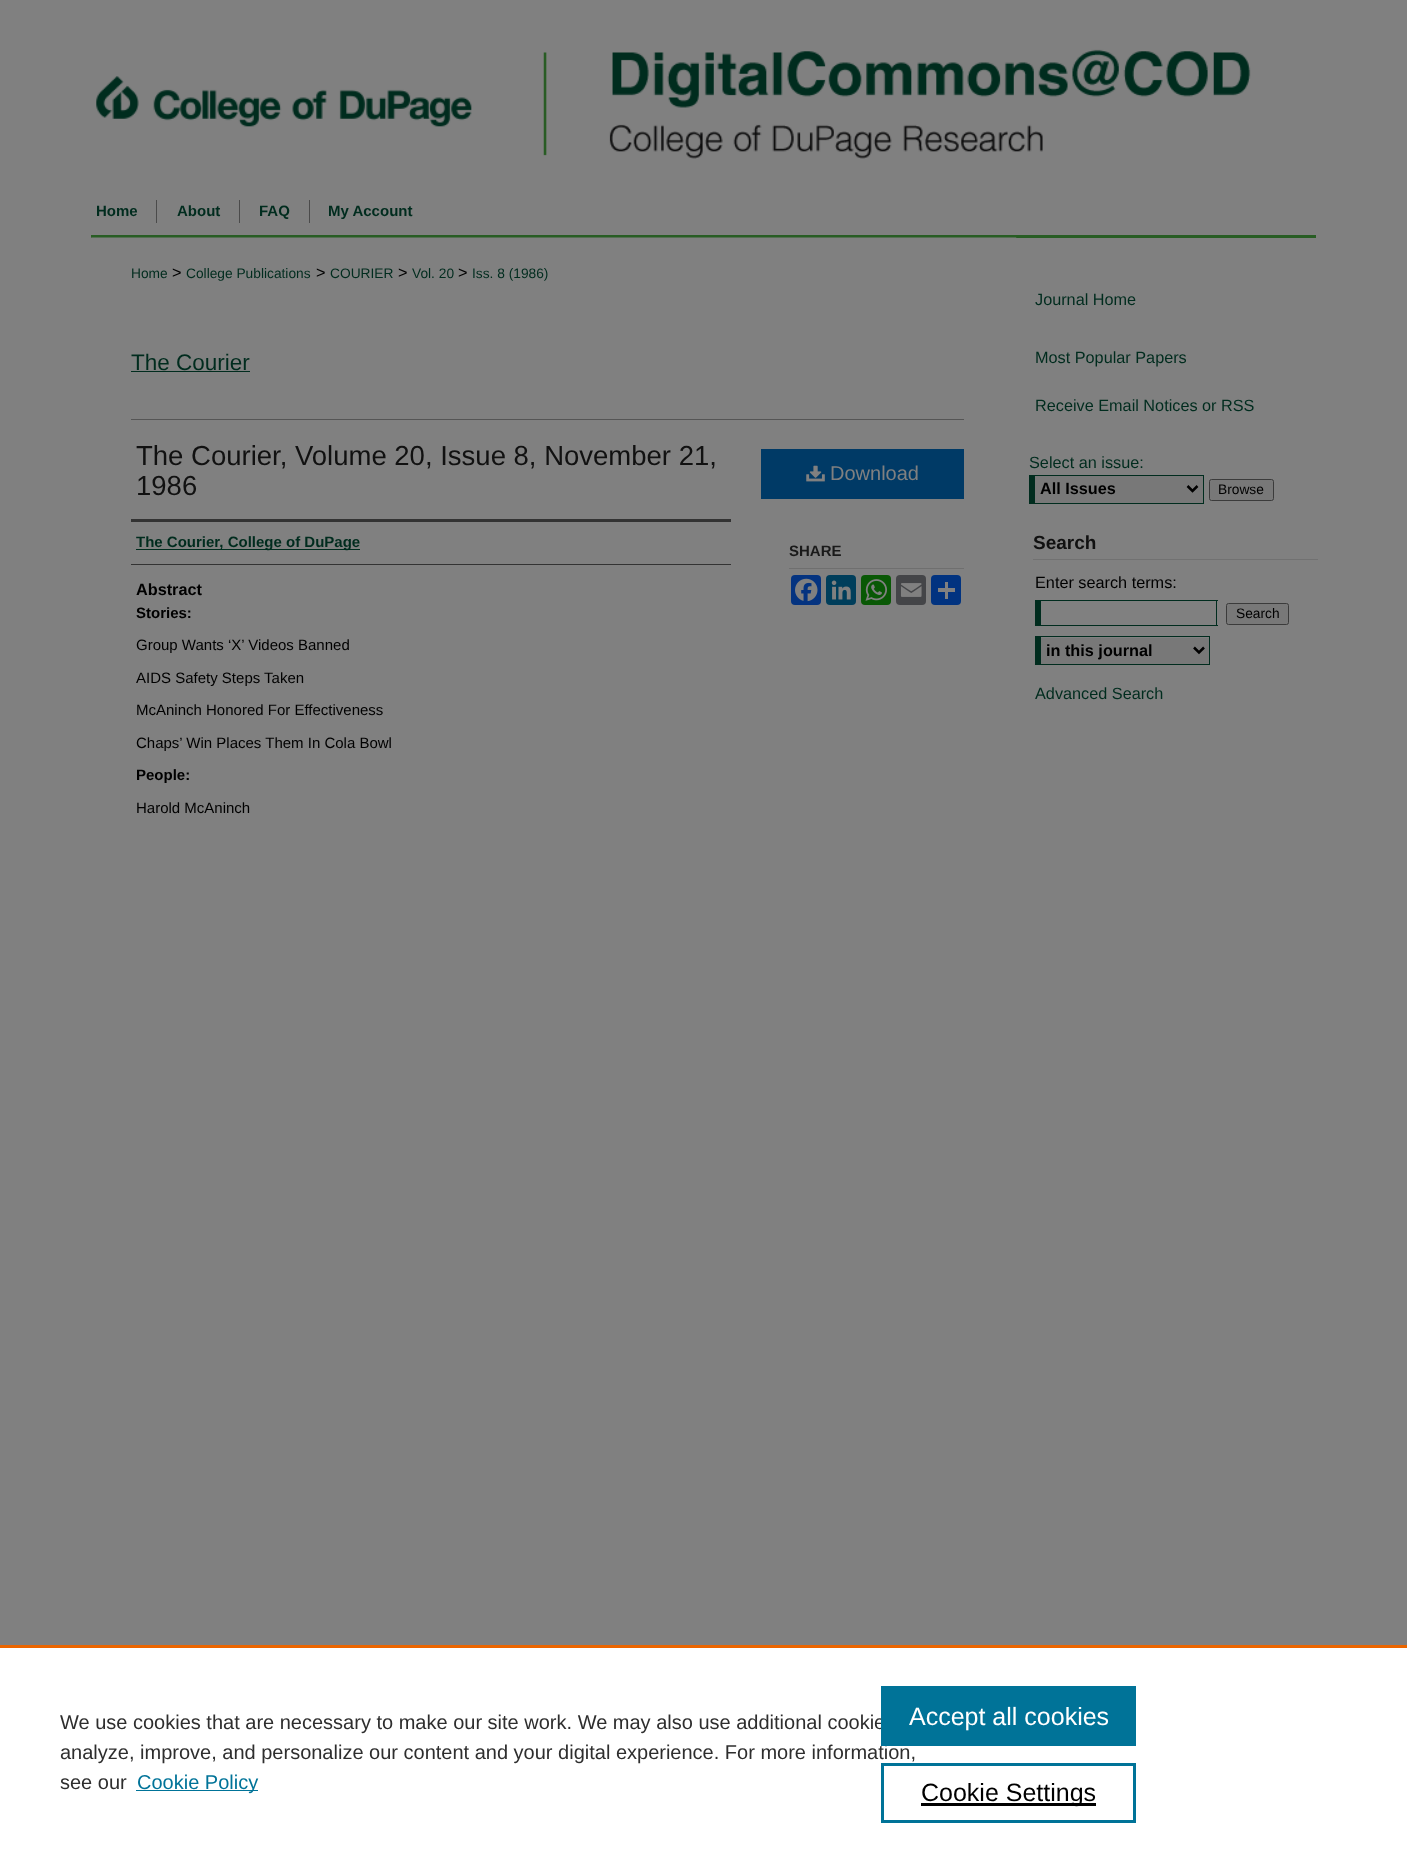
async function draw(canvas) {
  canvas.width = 1407;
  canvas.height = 1857;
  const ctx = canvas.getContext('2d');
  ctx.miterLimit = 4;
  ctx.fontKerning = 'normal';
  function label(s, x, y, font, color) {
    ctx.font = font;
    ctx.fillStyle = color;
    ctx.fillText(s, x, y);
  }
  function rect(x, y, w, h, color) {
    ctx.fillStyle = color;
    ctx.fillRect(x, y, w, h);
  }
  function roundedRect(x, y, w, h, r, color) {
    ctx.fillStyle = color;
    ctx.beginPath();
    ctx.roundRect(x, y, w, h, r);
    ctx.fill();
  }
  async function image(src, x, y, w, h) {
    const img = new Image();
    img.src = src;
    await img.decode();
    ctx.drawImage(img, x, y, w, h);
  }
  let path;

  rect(0, 0, 1407, 1857, '#808080');
  await image('assets/img1.png', 96, 49, 1155, 110);
  rect(91, 235, 1225, 3, '#285d24');
  rect(156, 200, 1, 23, '#4b4b4b');
  label('Home', 96, 216, 'bold 15px Liberation Sans', '#002c1e');
  rect(239, 200, 1, 23, '#4b4b4b');
  label('About', 177, 216, 'bold 15px Liberation Sans', '#002c1e');
  rect(309, 200, 1, 23, '#4b4b4b');
  label('FAQ', 259, 216, 'bold 15px Liberation Sans', '#002c1e');
  label('My Account', 328, 216, 'bold 15px Liberation Sans', '#002c1e');
  await image('assets/img2.png', 91, 237, 926, 1);
  label('Home', 131, 278, '13.75px Liberation Sans', '#002c1e');
  label('>', 172, 278, '16.25px Liberation Sans', '#000');
  label('College Publications', 186, 278, '13.75px Liberation Sans', '#002c1e');
  label('>', 316, 278, '16.25px Liberation Sans', '#000');
  label('COURIER', 330, 278, '13.75px Liberation Sans', '#002c1e');
  label('>', 398, 278, '16.25px Liberation Sans', '#000');
  label('Vol. 20', 412, 278, '13.75px Liberation Sans', '#002c1e');
  label('>', 458, 278, '16.25px Liberation Sans', '#000');
  label('Iss. 8 (1986)', 472, 278, '13.75px Liberation Sans', '#002c1e');
  label('The Courier', 131, 370, '22.5px Liberation Sans', '#002c1e');
  rect(131, 371, 119, 1, '#002c1e');
  rect(131, 419, 833, 1, '#555');
  label('The Courier, Volume 20, Issue 8, November 21,', 136, 465, '27.5px Liberation Sans', '#111');
  label('1986', 136, 495, '27.5px Liberation Sans', '#111');
  rect(131, 519, 600, 3, '#333');
  rect(131, 564, 600, 1, '#333');
  rect(136, 549, 224, 1, '#002c1e');
  label('The Courier, College of DuPage', 136, 547, 'bold 15px Liberation Sans', '#002c1e');
  label('Abstract', 136, 595, 'bold 16.25px Liberation Sans', '#000');
  label('Stories:', 136, 618, 'bold 15px Liberation Sans', '#000');
  label('Group Wants ‘X’ Videos Banned', 136, 650, '15px Liberation Sans', '#000');
  label('AIDS Safety Steps Taken', 136, 683, '15px Liberation Sans', '#000');
  label('McAninch Honored For Effectiveness', 136, 715, '15px Liberation Sans', '#000');
  label('Chaps’ Win Places Them In Cola Bowl', 136, 748, '15px Liberation Sans', '#000');
  label('People:', 136, 780, 'bold 15px Liberation Sans', '#000');
  label('Harold McAninch', 136, 813, '15px Liberation Sans', '#000');
  rect(761, 449, 203, 50, '#003a66');
  await image('assets/img3.png', 806, 465, 19, 17);
  label('Download', 830, 480, '20px Liberation Sans', '#808080');
  rect(789, 568, 175, 1, '#6f6f6f');
  label('SHARE', 789, 556, 'bold 15px Liberation Sans', '#1a1a1a');
  roundedRect(791, 575, 30, 30, 4, '#043380');
  await image('assets/img4.png', 795, 578, 23, 24);
  roundedRect(826, 575, 30, 30, 4, '#003e5b');
  await image('assets/img5.png', 831, 580, 20, 20);
  roundedRect(861, 575, 30, 30, 4, '#095805');
  await image('assets/img6.png', 865, 579, 22, 22);
  roundedRect(896, 575, 30, 30, 4, '#444548');
  await image('assets/img7.png', 900, 583, 22, 14);
  roundedRect(931, 575, 30, 30, 4, '#013380');
  rect(945, 582, 3, 17, '#808080');
  rect(938, 588, 17, 4, '#808080');
  label('Journal Home', 1035, 305, '16.25px Liberation Sans', '#002c1e');
  label('Most Popular Papers', 1035, 363, '16.25px Liberation Sans', '#002c1e');
  label('Receive Email Notices or RSS', 1035, 411, '16.25px Liberation Sans', '#002c1e');
  label('Select an issue:', 1029, 468, '16.25px Liberation Sans', '#002c1e');
  rect(1035, 476, 168, 27, '#787878');
  rect(1029, 475, 175, 1, '#002c1e');
  rect(1203, 475, 1, 29, '#002c1e');
  rect(1029, 503, 175, 1, '#002c1e');
  rect(1029, 475, 6, 29, '#002c1e');
  path = new Path2D('M1187.5 486L1192.5 491L1197.5 486');
  ctx.strokeStyle = '#000';
  ctx.lineWidth = 2.5;
  ctx.stroke(path);
  label('All Issues', 1040, 494, 'bold 16.25px Liberation Sans', '#000');
  ctx.fillStyle = '#787878';
  ctx.beginPath();
  ctx.roundRect(1209.5, 479.5, 64, 21, 2);
  ctx.fill();
  ctx.strokeStyle = '#3b3b3b';
  ctx.lineWidth = 1;
  ctx.stroke();
  label('Browse', 1218, 494, '13.75px Liberation Sans', '#000');
  rect(1033, 559, 285, 1, '#717171');
  label('Search', 1033, 549, 'bold 19px Liberation Sans', '#111');
  label('Enter search terms:', 1035, 588, '16.25px Liberation Sans', '#000');
  rect(1035, 600, 183, 1, '#002c1e');
  rect(1216, 600, 1, 26, '#002c1e');
  rect(1035, 625, 183, 1, '#002c1e');
  rect(1035, 600, 6, 26, '#002c1e');
  ctx.fillStyle = '#787878';
  ctx.beginPath();
  ctx.roundRect(1226.5, 603.5, 62, 21, 2);
  ctx.fill();
  ctx.stroke();
  label('Search', 1236, 618, '13.75px Liberation Sans', '#000');
  rect(1041, 638, 168, 26, '#787878');
  rect(1035, 636, 175, 1, '#002c1e');
  rect(1209, 636, 1, 29, '#002c1e');
  rect(1035, 664, 175, 1, '#002c1e');
  rect(1035, 636, 6, 29, '#002c1e');
  path = new Path2D('M1194 647.5L1199 652.5L1204 647.5');
  ctx.strokeStyle = '#000';
  ctx.lineWidth = 2.5;
  ctx.stroke(path);
  label('in this journal', 1046, 656, 'bold 16.25px Liberation Sans', '#000');
  label('Advanced Search', 1035, 699, '16.25px Liberation Sans', '#002c1e');
  rect(0, 1648, 1407, 209, '#fff');
  rect(0, 1645, 1407, 3, '#eb6500');
  label('We use cookies that are necessary to make our site work. We may also use additional cookie', 60, 1729, '20px Liberation Sans', '#2e2e2e');
  label('analyze, improve, and personalize our content and your digital experience. For more information,', 60, 1759, '20px Liberation Sans', '#2e2e2e');
  label('see our', 60, 1789, '20px Liberation Sans', '#2e2e2e');
  rect(136, 1790, 122, 1, '#007398');
  label('Cookie Policy', 137, 1789, '20px Liberation Sans', '#007398');
  rect(881, 1686, 255, 60, '#007398');
  label('Accept all cookies', 909, 1725, '25px Liberation Sans', '#fff');
  ctx.strokeStyle = '#007398';
  ctx.lineWidth = 3;
  ctx.strokeRect(882.5, 1764.5, 252, 57);
  rect(921, 1803, 175, 3, '#000');
  label('Cookie Settings', 921, 1801, '25px Liberation Sans', '#000');
}

draw(document.querySelector('canvas'));
